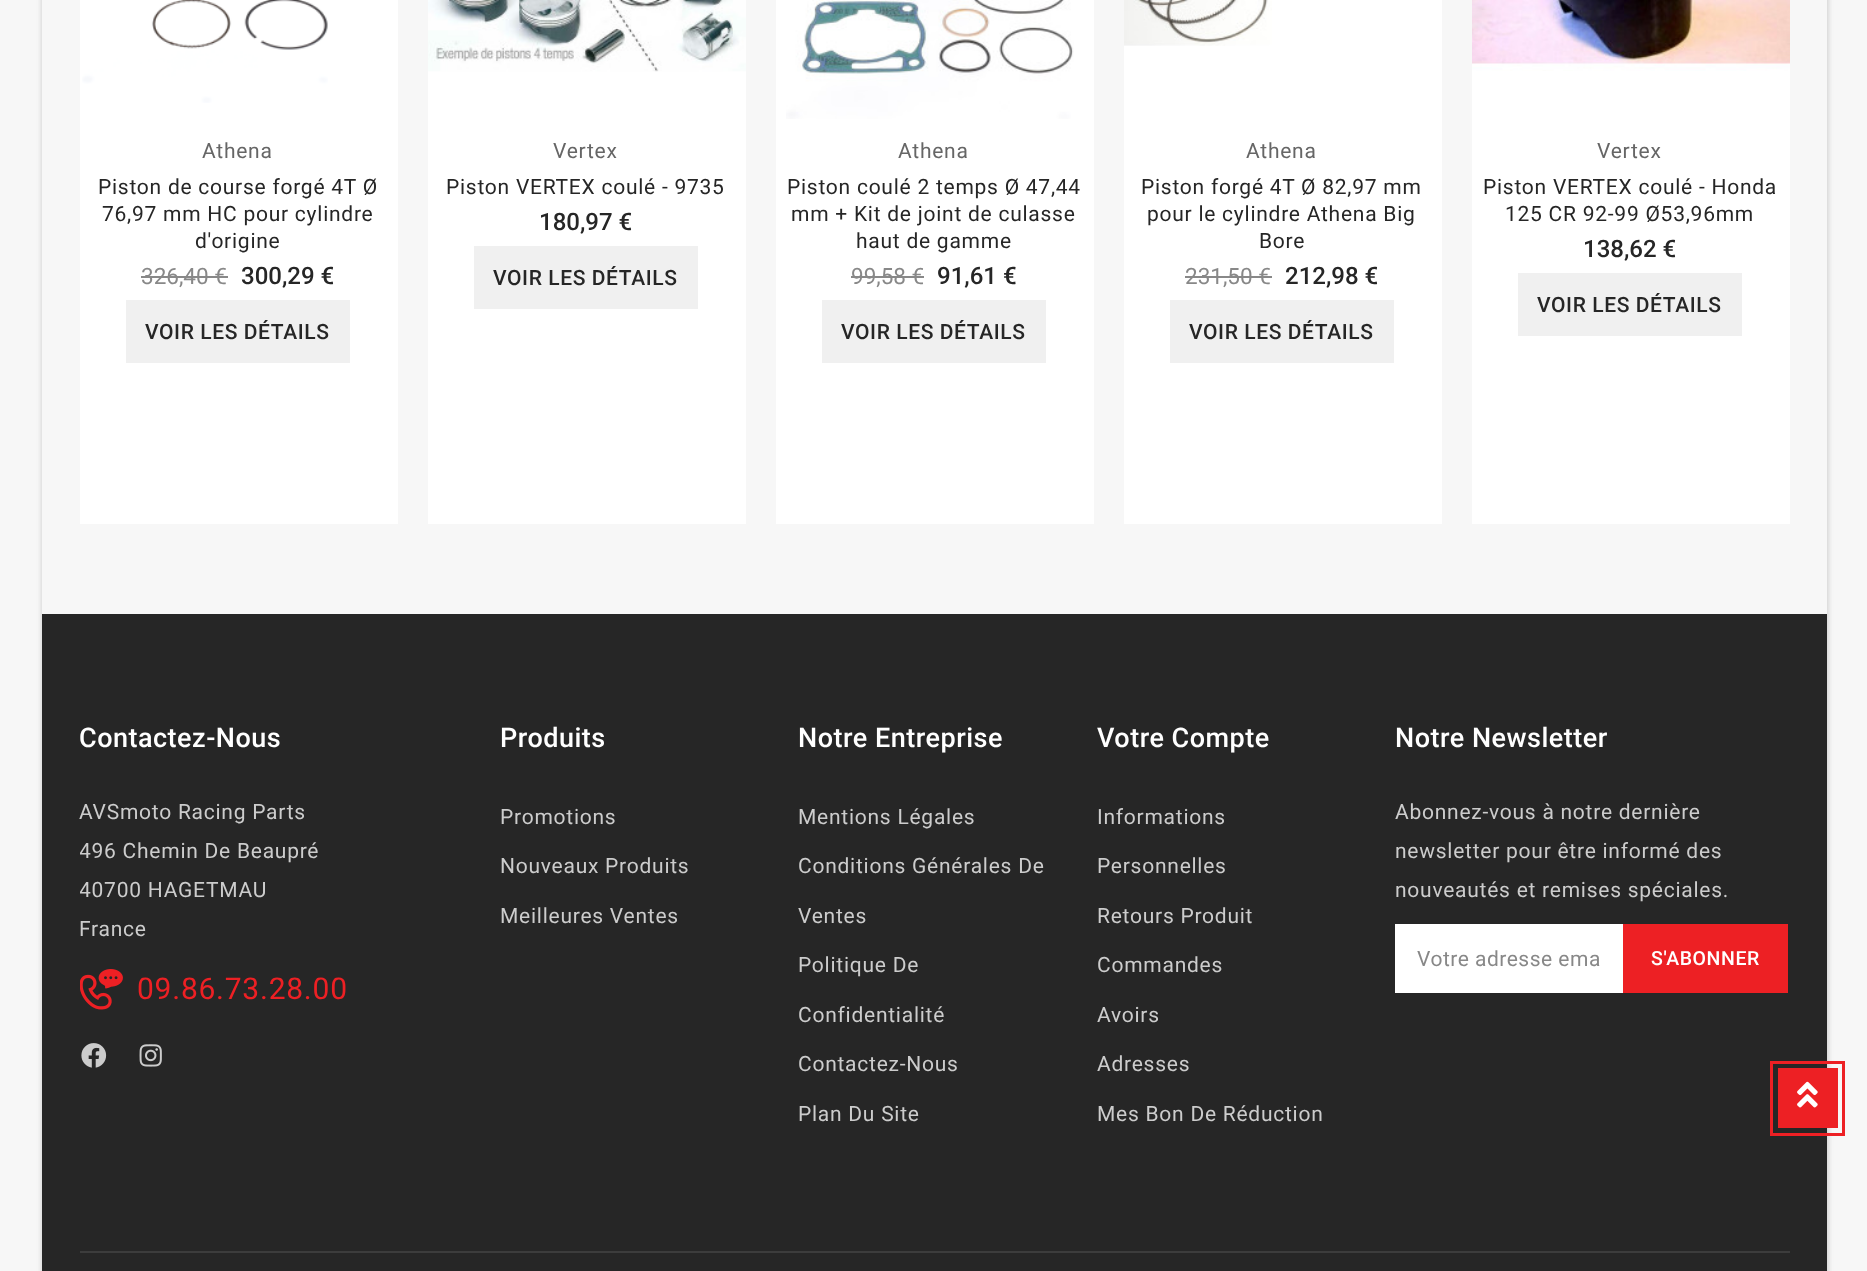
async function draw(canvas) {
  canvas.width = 1867;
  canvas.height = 1271;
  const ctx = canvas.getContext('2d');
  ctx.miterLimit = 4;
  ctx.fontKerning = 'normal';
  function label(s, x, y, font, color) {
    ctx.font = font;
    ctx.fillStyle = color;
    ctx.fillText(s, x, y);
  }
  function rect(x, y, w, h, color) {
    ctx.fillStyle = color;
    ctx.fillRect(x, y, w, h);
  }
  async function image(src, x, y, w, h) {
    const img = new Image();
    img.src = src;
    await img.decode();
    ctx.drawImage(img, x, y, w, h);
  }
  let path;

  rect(0, 0, 1867, 1271, '#f7f7f7');
  ctx.save();
  path = new Path2D('M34 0H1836V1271H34ZM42-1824H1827V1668H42Z');
  ctx.clip(path, 'evenodd');
  ctx.fillStyle = '#80808045';
  ctx.filter = 'blur(2px)';
  ctx.beginPath();
  ctx.rect(41, -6, 1788, 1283);
  ctx.fill();
  ctx.filter = 'none';
  ctx.restore();
  rect(80, 0, 318, 524, '#fff');
  await image('assets/img1.png', 82, 0, 246, 103);
  ctx.letterSpacing = '0.75px';
  label('Athena', 202, 158, '21px Roboto', '#666');
  label('Piston de course forgé 4T Ø', 98, 194, '21px Roboto', '#262626');
  label('76,97 mm HC pour cylindre', 102, 221, '21px Roboto', '#262626');
  label('d\'origine', 195, 248, '21px Roboto', '#262626');
  ctx.letterSpacing = '0px';
  label('326,40 €', 141, 284, '22.5px Roboto', '#888');
  rect(141, 276, 87, 2, '#888');
  label('300,29 €', 241, 284, '500 24px Roboto', '#262626');
  rect(126, 300, 224, 63, '#f0f0f0');
  ctx.letterSpacing = '0.6px';
  label('VOIR LES DÉTAILS', 145, 339, '500 21px Roboto', '#262626');
  rect(428, 72, 318, 452, '#fff');
  await image('assets/img2.png', 428, 0, 318, 72);
  ctx.letterSpacing = '0.75px';
  label('Vertex', 553, 158, '21px Roboto', '#666');
  label('Piston VERTEX coulé - 9735', 446, 194, '21px Roboto', '#262626');
  ctx.letterSpacing = '0px';
  label('180,97 €', 539, 230, '500 24px Roboto', '#262626');
  rect(474, 246, 224, 63, '#f0f0f0');
  ctx.letterSpacing = '0.6px';
  label('VOIR LES DÉTAILS', 493, 285, '500 21px Roboto', '#262626');
  rect(776, 0, 318, 524, '#fff');
  await image('assets/img3.png', 786, 0, 288, 119);
  ctx.letterSpacing = '0.75px';
  label('Athena', 898, 158, '21px Roboto', '#666');
  label('Piston coulé 2 temps Ø 47,44', 787, 194, '21px Roboto', '#262626');
  label('mm + Kit de joint de culasse', 791, 221, '21px Roboto', '#262626');
  label('haut de gamme', 856, 248, '21px Roboto', '#262626');
  ctx.letterSpacing = '0px';
  label('99,58 €', 851, 284, '22.5px Roboto', '#888');
  rect(851, 276, 73, 2, '#888');
  label('91,61 €', 937, 284, '500 24px Roboto', '#262626');
  rect(822, 300, 224, 63, '#f0f0f0');
  ctx.letterSpacing = '0.6px';
  label('VOIR LES DÉTAILS', 841, 339, '500 21px Roboto', '#262626');
  rect(1124, 0, 318, 524, '#fff');
  await image('assets/img4.png', 1124, 0, 148, 46);
  ctx.letterSpacing = '0.75px';
  label('Athena', 1246, 158, '21px Roboto', '#666');
  label('Piston forgé 4T Ø 82,97 mm', 1141, 194, '21px Roboto', '#262626');
  label('pour le cylindre Athena Big', 1147, 221, '21px Roboto', '#262626');
  label('Bore', 1259, 248, '21px Roboto', '#262626');
  ctx.letterSpacing = '0px';
  label('231,50 €', 1185, 284, '22.5px Roboto', '#888');
  rect(1185, 276, 87, 2, '#888');
  label('212,98 €', 1285, 284, '500 24px Roboto', '#262626');
  rect(1170, 300, 224, 63, '#f0f0f0');
  ctx.letterSpacing = '0.6px';
  label('VOIR LES DÉTAILS', 1189, 339, '500 21px Roboto', '#262626');
  rect(1472, 71, 318, 453, '#fff');
  await image('assets/img5.png', 1472, 0, 318, 71);
  ctx.letterSpacing = '0.75px';
  label('Vertex', 1597, 158, '21px Roboto', '#666');
  label('Piston VERTEX coulé - Honda', 1483, 194, '21px Roboto', '#262626');
  label('125 CR 92-99 Ø53,96mm', 1505, 221, '21px Roboto', '#262626');
  ctx.letterSpacing = '0px';
  label('138,62 €', 1583, 257, '500 24px Roboto', '#262626');
  rect(1518, 273, 224, 63, '#f0f0f0');
  ctx.letterSpacing = '0.6px';
  label('VOIR LES DÉTAILS', 1537, 312, '500 21px Roboto', '#262626');
  rect(42, 614, 1785, 657, '#262626');
  ctx.letterSpacing = '0.5px';
  label('Contactez-Nous', 79, 747, '500 27px Roboto', '#fff');
  ctx.letterSpacing = '0.75px';
  label('AVSmoto Racing Parts', 79, 819, '21px Roboto', '#ccc');
  ctx.save();
  ctx.beginPath();
  ctx.rect(80, 792, 375, 156);
  ctx.clip();
  label('496 Chemin De Beaupré', 79, 858, '21px Roboto', '#ccc');
  label('40700 HAGETMAU', 79, 897, '21px Roboto', '#ccc');
  ctx.restore();
  label('France', 79, 936, '21px Roboto', '#ccc');
  await image('assets/img6.png', 80, 969, 43, 41);
  label('09.86.73.28.00', 137, 999, '30px Roboto', '#ed2024');
  await image('assets/img7.png', 81, 1043, 26, 25);
  await image('assets/img8.png', 139, 1044, 23, 23);
  ctx.letterSpacing = '0.5px';
  label('Produits', 500, 747, '500 27px Roboto', '#fff');
  ctx.letterSpacing = '0.75px';
  label('Promotions', 500, 824, '21px Roboto', '#ccc');
  label('Nouveaux Produits', 500, 873, '21px Roboto', '#ccc');
  label('Meilleures Ventes', 500, 923, '21px Roboto', '#ccc');
  ctx.letterSpacing = '0.5px';
  label('Notre Entreprise', 798, 747, '500 27px Roboto', '#fff');
  ctx.letterSpacing = '0.75px';
  label('Mentions Légales', 798, 824, '21px Roboto', '#ccc');
  label('Conditions Générales De', 798, 873, '21px Roboto', '#ccc');
  label('Ventes', 798, 923, '21px Roboto', '#ccc');
  label('Politique De', 798, 972, '21px Roboto', '#ccc');
  label('Confidentialité', 798, 1022, '21px Roboto', '#ccc');
  label('Contactez-Nous', 798, 1071, '21px Roboto', '#ccc');
  label('Plan Du Site', 798, 1121, '21px Roboto', '#ccc');
  ctx.letterSpacing = '0.5px';
  label('Votre Compte', 1097, 747, '500 27px Roboto', '#fff');
  ctx.letterSpacing = '0.75px';
  label('Informations', 1097, 824, '21px Roboto', '#ccc');
  label('Personnelles', 1097, 873, '21px Roboto', '#ccc');
  label('Retours Produit', 1097, 923, '21px Roboto', '#ccc');
  label('Commandes', 1097, 972, '21px Roboto', '#ccc');
  label('Avoirs', 1097, 1022, '21px Roboto', '#ccc');
  label('Adresses', 1097, 1071, '21px Roboto', '#ccc');
  label('Mes Bon De Réduction', 1097, 1121, '21px Roboto', '#ccc');
  ctx.letterSpacing = '0.5px';
  label('Notre Newsletter', 1395, 747, '500 27px Roboto', '#fff');
  ctx.letterSpacing = '0.75px';
  label('Abonnez-vous à notre dernière', 1395, 819, '21px Roboto', '#ccc');
  label('newsletter pour être informé des', 1395, 858, '21px Roboto', '#ccc');
  label('nouveautés et remises spéciales.', 1395, 897, '21px Roboto', '#ccc');
  rect(1395, 924, 228, 69, '#fff');
  ctx.letterSpacing = '0.5px';
  label('Votre adresse ema', 1417, 966, '21px Roboto', '#888');
  rect(1623, 924, 165, 69, '#ed2024');
  ctx.letterSpacing = '0.6px';
  label('S\'ABONNER', 1651, 965, '500 19.5px Roboto', '#fff');
  rect(80, 1251, 1710, 2, '#3c3c3c');
  rect(1778, 1068, 60, 60, '#ed2024');
  await image('assets/img9.png', 1797, 1081, 21, 27);
  ctx.strokeStyle = '#ed2024';
  ctx.lineWidth = 3;
  ctx.strokeRect(1771.5, 1062.5, 72, 72);
}

draw(document.querySelector('canvas'));
